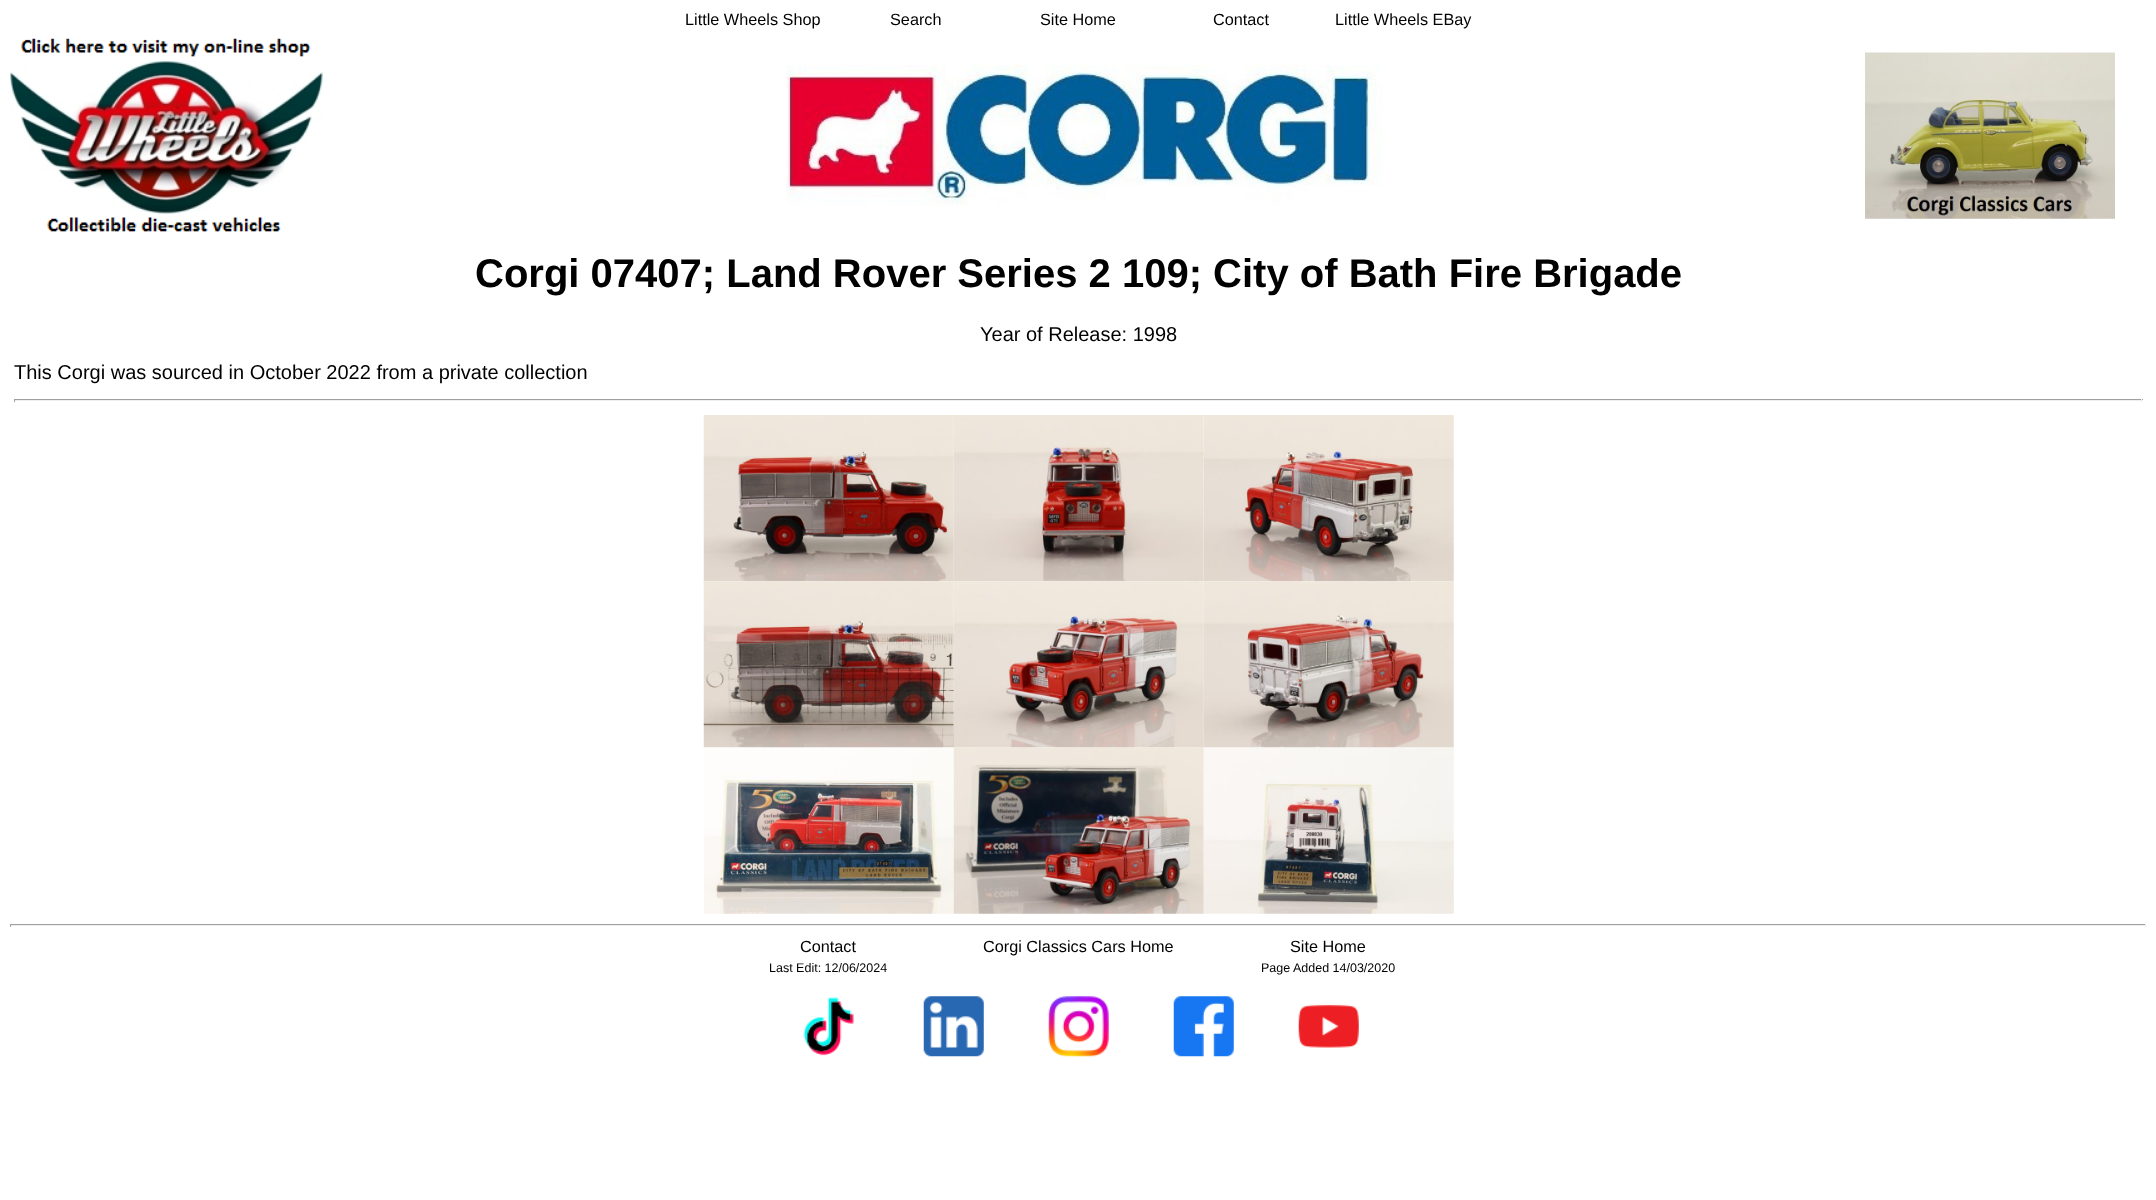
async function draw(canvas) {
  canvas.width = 2156;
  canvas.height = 1200;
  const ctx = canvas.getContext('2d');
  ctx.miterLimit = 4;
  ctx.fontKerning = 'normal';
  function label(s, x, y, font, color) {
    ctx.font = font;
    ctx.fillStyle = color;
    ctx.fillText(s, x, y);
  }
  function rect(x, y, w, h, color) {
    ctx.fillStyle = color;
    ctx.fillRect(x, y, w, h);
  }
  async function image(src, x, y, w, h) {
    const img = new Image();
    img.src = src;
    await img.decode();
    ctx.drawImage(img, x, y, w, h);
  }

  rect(0, 0, 2156, 1200, '#fff');
  label('Little Wheels Shop', 685, 25, '16.25px Liberation Sans', '#000');
  label('Search', 890, 25, '16.25px Liberation Sans', '#000');
  label('Site Home', 1040, 25, '16.25px Liberation Sans', '#000');
  label('Contact', 1213, 25, '16.25px Liberation Sans', '#000');
  label('Little Wheels EBay', 1335, 25, '16.25px Liberation Sans', '#000');
  await image('assets/img1.png', 10, 38, 313, 194);
  await image('assets/img2.png', 786, 65, 597, 141);
  await image('assets/img3.png', 1865, 52, 250, 167);
  label('Corgi 07407; Land Rover Series 2 109; City of Bath Fire Brigade', 475, 287, 'bold 40px Liberation Sans', '#000');
  label('Year of Release: 1998', 980, 341, '20px Liberation Sans', '#000');
  label('This Corgi was sourced in October 2022 from a private collection', 14, 379, '20px Liberation Sans', '#000');
  rect(14, 399, 2129, 1, '#9f9f9f');
  rect(2141, 399, 1, 3, '#eee');
  rect(14, 400, 2129, 1, '#eee');
  rect(14, 399, 1, 3, '#9f9f9f');
  await image('assets/img4.png', 703, 415, 251, 167);
  await image('assets/img5.png', 953, 415, 251, 167);
  await image('assets/img6.png', 1204, 415, 250, 167);
  await image('assets/img7.png', 703, 581, 251, 167);
  await image('assets/img8.png', 953, 581, 251, 167);
  await image('assets/img9.png', 1203, 581, 251, 167);
  await image('assets/img10.png', 704, 747, 250, 167);
  await image('assets/img11.png', 953, 747, 251, 167);
  await image('assets/img12.png', 1203, 747, 251, 167);
  rect(10, 924, 2136, 1, '#9f9f9f');
  rect(2145, 924, 1, 3, '#eee');
  rect(10, 925, 2136, 1, '#eee');
  rect(10, 924, 1, 3, '#9f9f9f');
  label('Contact', 800, 952, '16.25px Liberation Sans', '#000');
  label('Corgi Classics Cars Home', 983, 952, '16.25px Liberation Sans', '#000');
  label('Site Home', 1290, 952, '16.25px Liberation Sans', '#000');
  label('Last Edit: 12/06/2024', 769, 972, '12.5px Liberation Sans', '#000');
  label('Page Added 14/03/2020', 1261, 972, '12.5px Liberation Sans', '#000');
  await image('assets/img13.png', 803, 997, 51, 59);
  await image('assets/img14.png', 923, 996, 61, 61);
  await image('assets/img15.png', 1048, 996, 61, 61);
  await image('assets/img16.png', 1173, 996, 61, 61);
  await image('assets/img17.png', 1298, 1004, 61, 44);
}

draw(document.querySelector('canvas'));
